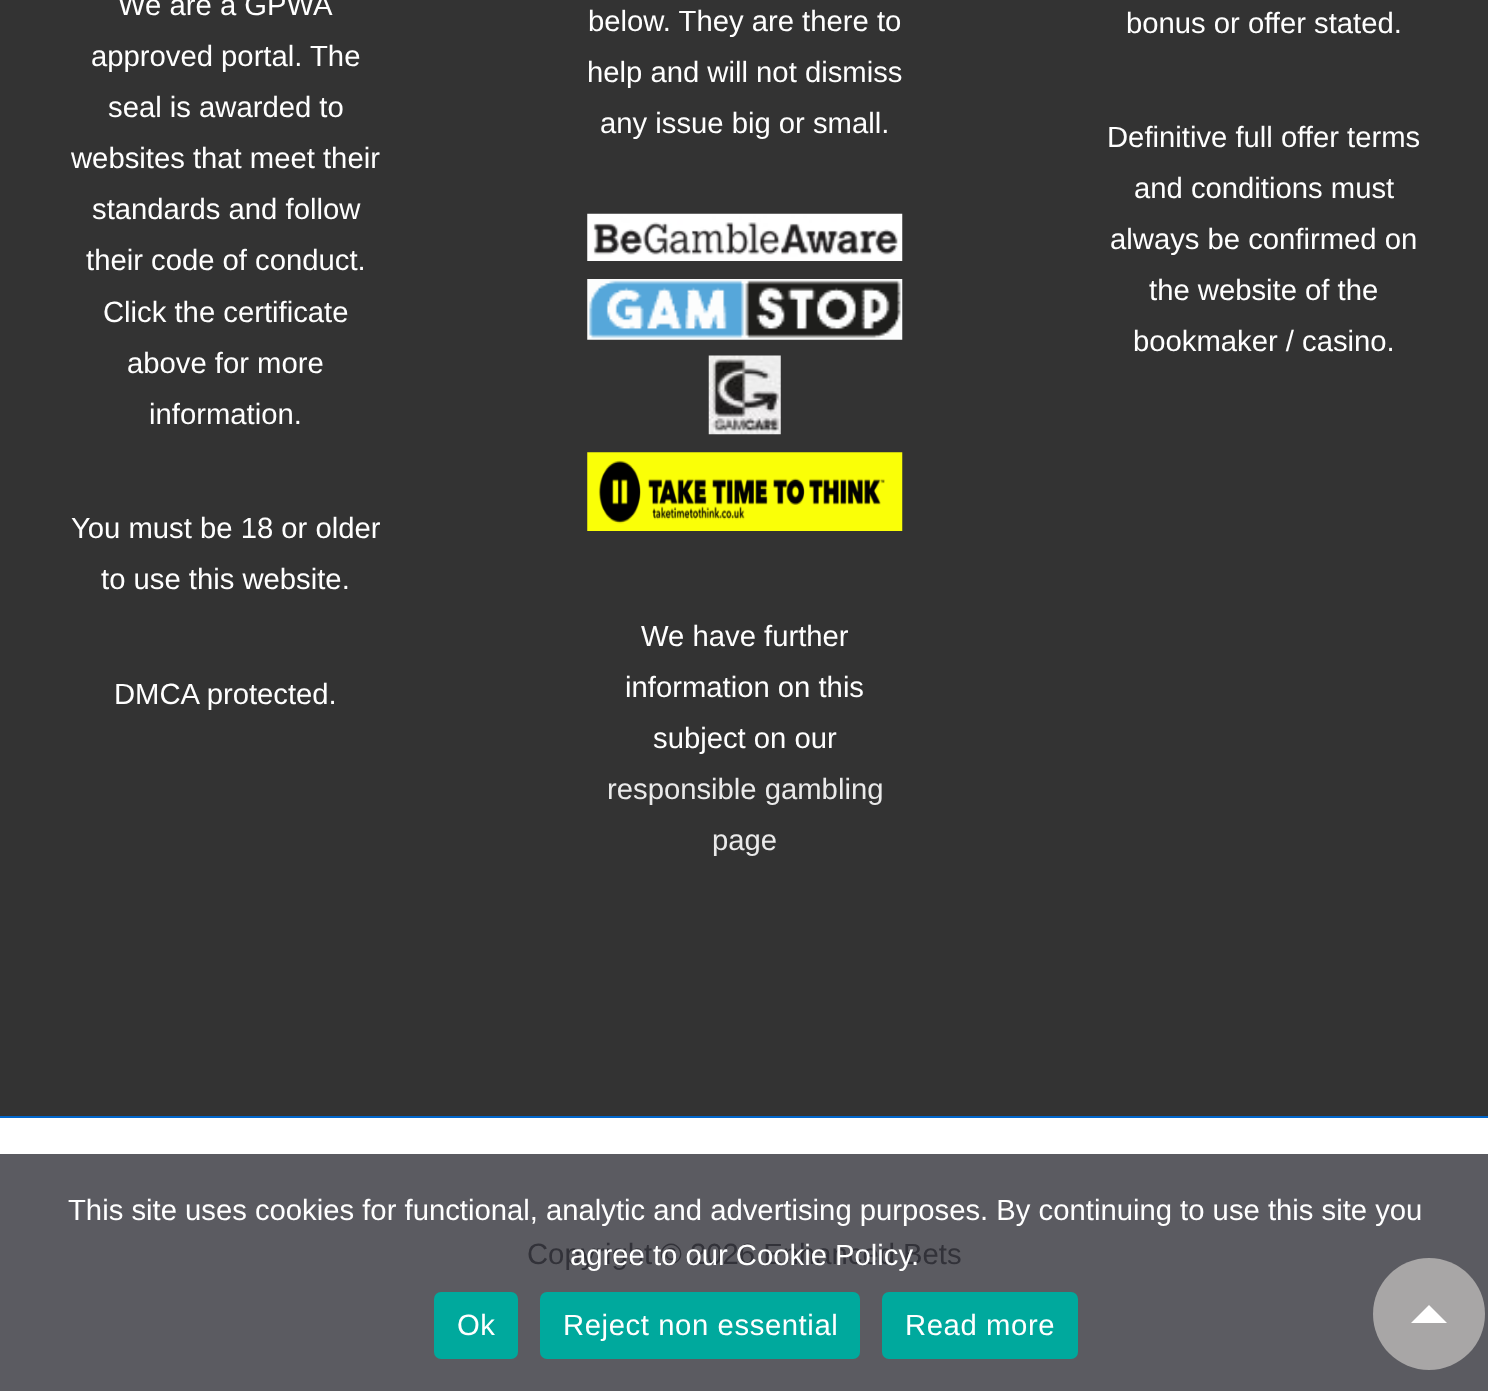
async function draw(canvas) {
  canvas.width = 1488;
  canvas.height = 1391;
  const ctx = canvas.getContext('2d');
  ctx.miterLimit = 4;
  ctx.fontKerning = 'normal';
  function label(s, x, y, font, color) {
    ctx.font = font;
    ctx.fillStyle = color;
    ctx.fillText(s, x, y);
  }
  function rect(x, y, w, h, color) {
    ctx.fillStyle = color;
    ctx.fillRect(x, y, w, h);
  }
  function roundedRect(x, y, w, h, r, color) {
    ctx.fillStyle = color;
    ctx.beginPath();
    ctx.roundRect(x, y, w, h, r);
    ctx.fill();
  }
  async function image(src, x, y, w, h) {
    const img = new Image();
    img.src = src;
    await img.decode();
    ctx.drawImage(img, x, y, w, h);
  }
  let path;

  rect(0, 0, 1488, 1391, '#333');
  label('We are a GPWA', 118, 15, '29.25px Liberation Sans', '#fff');
  label('approved portal.', 91, 66, '29.25px Liberation Sans', '#fff');
  label('The', 310, 66, '29.25px Liberation Sans', '#fff');
  label('seal is awarded to', 108, 117, '29.25px Liberation Sans', '#fff');
  label('websites that meet their', 71, 168, '29.25px Liberation Sans', '#fff');
  label('standards and follow', 92, 219, '29.25px Liberation Sans', '#fff');
  label('their code of conduct.', 86, 270, '29.25px Liberation Sans', '#fff');
  label('Click the certificate', 103, 322, '29.25px Liberation Sans', '#fff');
  label('above for more', 127, 373, '29.25px Liberation Sans', '#fff');
  label('information.', 149, 424, '29.25px Liberation Sans', '#fff');
  label('You must be 18 or older', 71, 538, '29.25px Liberation Sans', '#fff');
  label('to use this website.', 101, 589, '29.25px Liberation Sans', '#fff');
  label('DMCA protected.', 114, 704, '29.25px Liberation Sans', '#fff');
  label('below. They are there to', 588, 31, '29.25px Liberation Sans', '#fff');
  label('help and will not dismiss', 587, 82, '29.25px Liberation Sans', '#fff');
  label('any issue big or small.', 600, 133, '29.25px Liberation Sans', '#fff');
  await image('assets/img1.png', 587, 213, 316, 48);
  await image('assets/img2.png', 587, 279, 316, 61);
  await image('assets/img3.png', 708, 355, 73, 80);
  await image('assets/img4.png', 587, 452, 316, 79);
  label('We have further', 641, 646, '29.25px Liberation Sans', '#fff');
  label('information on this', 625, 697, '29.25px Liberation Sans', '#fff');
  label('subject on our', 653, 748, '29.25px Liberation Sans', '#fff');
  label('responsible gambling', 607, 799, '29.25px Liberation Sans', '#eaeaea');
  label('page', 712, 850, '29.25px Liberation Sans', '#eaeaea');
  label('bonus or offer stated.', 1126, 33, '29.25px Liberation Sans', '#fff');
  label('Definitive full offer terms', 1107, 147, '29.25px Liberation Sans', '#fff');
  label('and conditions must', 1134, 198, '29.25px Liberation Sans', '#fff');
  label('always be confirmed on', 1110, 249, '29.25px Liberation Sans', '#fff');
  label('the website of the', 1149, 300, '29.25px Liberation Sans', '#fff');
  label('bookmaker / casino.', 1133, 351, '29.25px Liberation Sans', '#fff');
  rect(0, 1118, 1488, 36, '#fff');
  rect(0, 1154, 1488, 237, '#5b5b61');
  rect(0, 1116, 1488, 2, '#06c');
  label('Copyright © 2026 Enhanced Bets', 527, 1264, '29.25px Liberation Sans', '#323239');
  ctx.fillStyle = '#a8a6a6';
  ctx.beginPath();
  ctx.arc(1429, 1314, 56, 0, 2 * Math.PI);
  ctx.fill();
  ctx.fillStyle = '#fff';
  path = new Path2D('M1447 1323H1411L1429 1305Z');
  ctx.fill(path);
  label('This site uses cookies for functional, analytic and advertising purposes. By continuing to use this site you', 68, 1220, '29.25px Liberation Sans', '#fff');
  label('agree to our Cookie Policy.', 570, 1265, '29.25px Liberation Sans', '#fff');
  roundedRect(434, 1292, 84, 67, 7, '#00a99d');
  ctx.letterSpacing = '0.6px';
  label('Ok', 457, 1335, '29.25px Liberation Sans', '#fff');
  roundedRect(540, 1292, 320, 67, 7, '#00a99d');
  label('Reject non essential', 563, 1335, '29.25px Liberation Sans', '#fff');
  roundedRect(882, 1292, 196, 67, 7, '#00a99d');
  label('Read more', 905, 1335, '29.25px Liberation Sans', '#fff');
}

draw(document.querySelector('canvas'));
